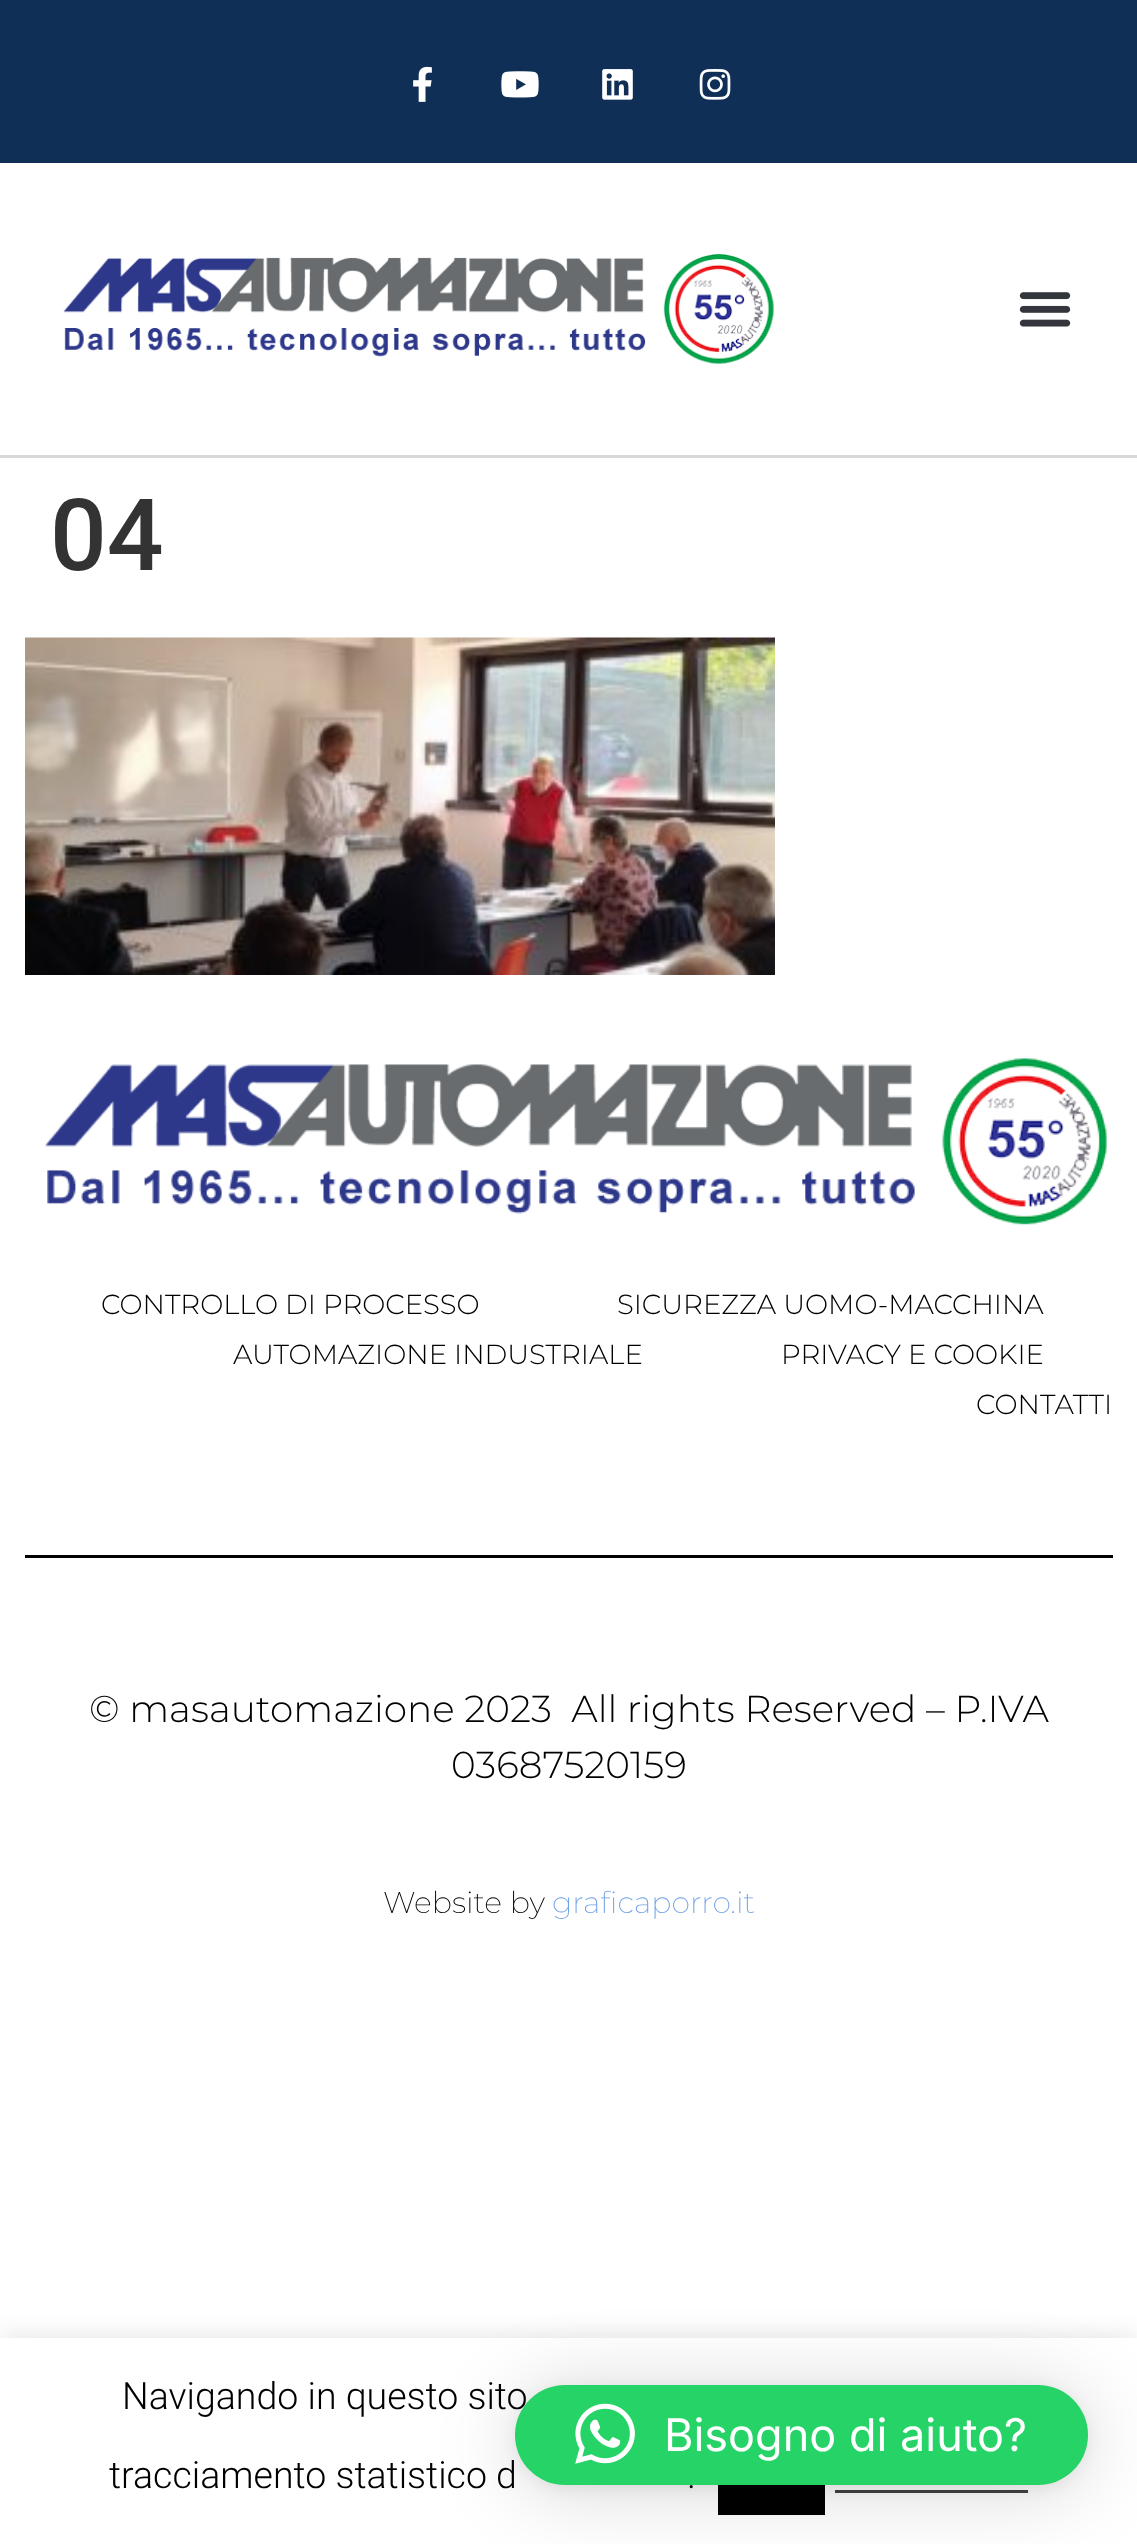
async function draw(canvas) {
  canvas.width = 1137;
  canvas.height = 2544;
  const ctx = canvas.getContext('2d');
  ctx.miterLimit = 4;
  ctx.fontKerning = 'normal';
  function label(s, x, y, font, color) {
    ctx.font = font;
    ctx.fillStyle = color;
    ctx.fillText(s, x, y);
  }
  function rect(x, y, w, h, color) {
    ctx.fillStyle = color;
    ctx.fillRect(x, y, w, h);
  }
  function roundedRect(x, y, w, h, r, color) {
    ctx.fillStyle = color;
    ctx.beginPath();
    ctx.roundRect(x, y, w, h, r);
    ctx.fill();
  }
  async function image(src, x, y, w, h) {
    const img = new Image();
    img.src = src;
    await img.decode();
    ctx.drawImage(img, x, y, w, h);
  }

  rect(0, 0, 1137, 2544, '#fff');
  rect(0, 0, 1137, 163, '#0f2f57');
  await image('assets/img1.png', 413, 66, 19, 36);
  await image('assets/img2.png', 501, 71, 38, 27);
  await image('assets/img3.png', 602, 69, 31, 31);
  await image('assets/img4.png', 699, 69, 32, 31);
  rect(0, 455, 1137, 3, '#d8d8d8');
  await image('assets/img5.png', 63, 254, 711, 110);
  await image('assets/img6.png', 1019, 292, 52, 35);
  label('04', 50, 570, '500 100px Roboto', '#333');
  await image('assets/img7.png', 25, 637, 750, 338);
  await image('assets/img8.png', 45, 1058, 1062, 167);
  label('CONTROLLO DI PROCESSO', 101, 1314, '300 27.5px Montserrat', '#000');
  label('SICUREZZA UOMO-MACCHINA', 617, 1314, '300 27.5px Montserrat', '#000');
  label('AUTOMAZIONE INDUSTRIALE', 233, 1364, '300 27.5px Montserrat', '#000');
  label('PRIVACY E COOKIE', 781, 1364, '300 27.5px Montserrat', '#000');
  label('CONTATTI', 976, 1414, '300 27.5px Montserrat', '#000');
  rect(25, 1555, 1088, 3, '#000');
  label('© masautomazione 2023  All rights Reserved – P.IVA', 89, 1722, '300 37.5px Montserrat', '#000');
  label('03687520159', 451, 1778, '300 37.5px Montserrat', '#000');
  label('Website by', 383, 1913, '200 30px Montserrat', '#000');
  label('graficaporro.it', 552, 1913, '200 30px Montserrat', '#70a2e6');
  ctx.save();
  ctx.beginPath();
  ctx.rect(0, 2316, 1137, 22);
  ctx.clip();
  ctx.fillStyle = '#acabab4d';
  ctx.filter = 'blur(12.5px)';
  ctx.beginPath();
  ctx.rect(0, 2335, 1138, 208);
  ctx.fill();
  ctx.filter = 'none';
  ctx.restore();
  label('Navigando in questo sito', 122, 2409, '300 37.5px Roboto', '#000');
  label('tracciamento statistico d', 109, 2488, '300 37.5px Roboto', '#000');
  label('.', 687, 2488, '300 37.5px Roboto', '#000');
  rect(718, 2485, 107, 30, '#000');
  rect(835, 2490, 193, 3, '#444');
  ctx.fillStyle = '#00000029';
  ctx.filter = 'blur(40px)';
  ctx.beginPath();
  ctx.roundRect(515, 2390, 573, 100, 50);
  ctx.fill();
  ctx.filter = 'none';
  ctx.fillStyle = '#0000000f';
  ctx.filter = 'blur(7.5px)';
  ctx.beginPath();
  ctx.roundRect(515, 2388, 573, 100, 50);
  ctx.fill();
  ctx.filter = 'none';
  roundedRect(515, 2385, 573, 100, 50, '#25d366');
  await image('assets/img9.png', 575, 2403, 60, 61);
  label('Bisogno di aiuto?', 664, 2451, '45px Inter', '#fff');
}

draw(document.querySelector('canvas'));
